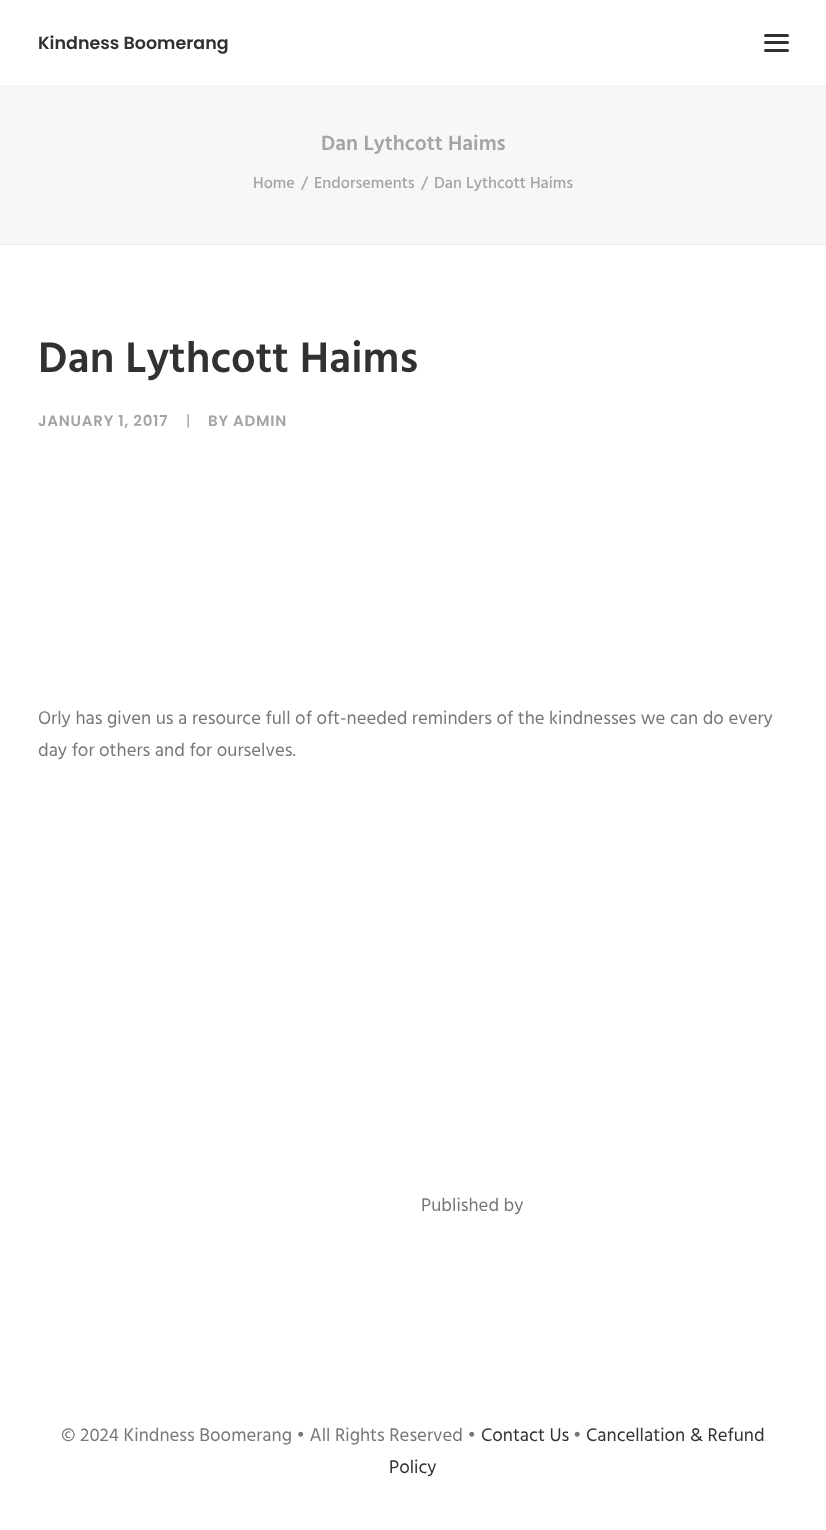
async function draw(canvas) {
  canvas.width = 826;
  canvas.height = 1530;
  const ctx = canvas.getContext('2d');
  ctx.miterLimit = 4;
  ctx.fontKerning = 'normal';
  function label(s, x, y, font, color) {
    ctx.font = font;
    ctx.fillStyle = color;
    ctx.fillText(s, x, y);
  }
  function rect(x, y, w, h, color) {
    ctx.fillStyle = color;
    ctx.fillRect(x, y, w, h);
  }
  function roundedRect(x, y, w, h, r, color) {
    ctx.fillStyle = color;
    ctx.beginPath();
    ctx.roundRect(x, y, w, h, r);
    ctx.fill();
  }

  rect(0, 0, 826, 1530, '#fff');
  rect(0, 85, 826, 1, '#f5f5f5');
  label('Kindness Boomerang', 38, 49, '600 17.5px Poppins', '#303133');
  roundedRect(764, 41, 25, 3, 1.5, '#303133');
  roundedRect(764, 34, 25, 3, 1.5, '#303133');
  roundedRect(764, 49, 25, 3, 1.5, '#303133');
  rect(0, 86, 826, 158, '#f7f7f7');
  rect(0, 244, 826, 1, '#eaeaea');
  label('Dan Lythcott Haims', 321, 150, '600 21.25px Hind', '#a4a4a4');
  label('Home', 253, 188, '500 16.25px Hind', '#a4a4a4');
  label('/', 301, 188, '500 16.25px Hind', '#a4a4a4');
  label('Endorsements', 314, 188, '500 16.25px Hind', '#a4a4a4');
  label('/', 421, 188, '500 16.25px Hind', '#a4a4a4');
  label('Dan Lythcott Haims', 434, 188, '500 16.25px Hind', '#a4a4a4');
  label('Dan Lythcott Haims', 38, 372, '600 43.75px Hind', '#303133');
  ctx.letterSpacing = '0.75px';
  label('JANUARY 1, 2017', 38, 426, '600 15px Poppins', '#a4a4a4');
  label('|', 186, 426, '15px Poppins', '#a4a4a4');
  label('BY ADMIN', 208, 426, '600 15px Poppins', '#a4a4a4');
  ctx.letterSpacing = '0px';
  label('Orly has given us a resource full of oft-needed reminders of the kindnesses we can do every', 38, 724, '18.75px Hind', '#777');
  label('day for others and for ourselves.', 38, 756, '18.75px Hind', '#777');
  label('Published by', 421, 1211, '18.75px Hind', '#777');
  label('© 2024 Kindness Boomerang • All Rights Reserved •', 61, 1441, '18.75px Hind', '#777');
  label('Contact Us', 481, 1441, '18.75px Hind', '#303133');
  label('•', 573, 1441, '18.75px Hind', '#777');
  label('Cancellation & Refund', 586, 1441, '18.75px Hind', '#303133');
  label('Policy', 389, 1473, '18.75px Hind', '#303133');
}

draw(document.querySelector('canvas'));
